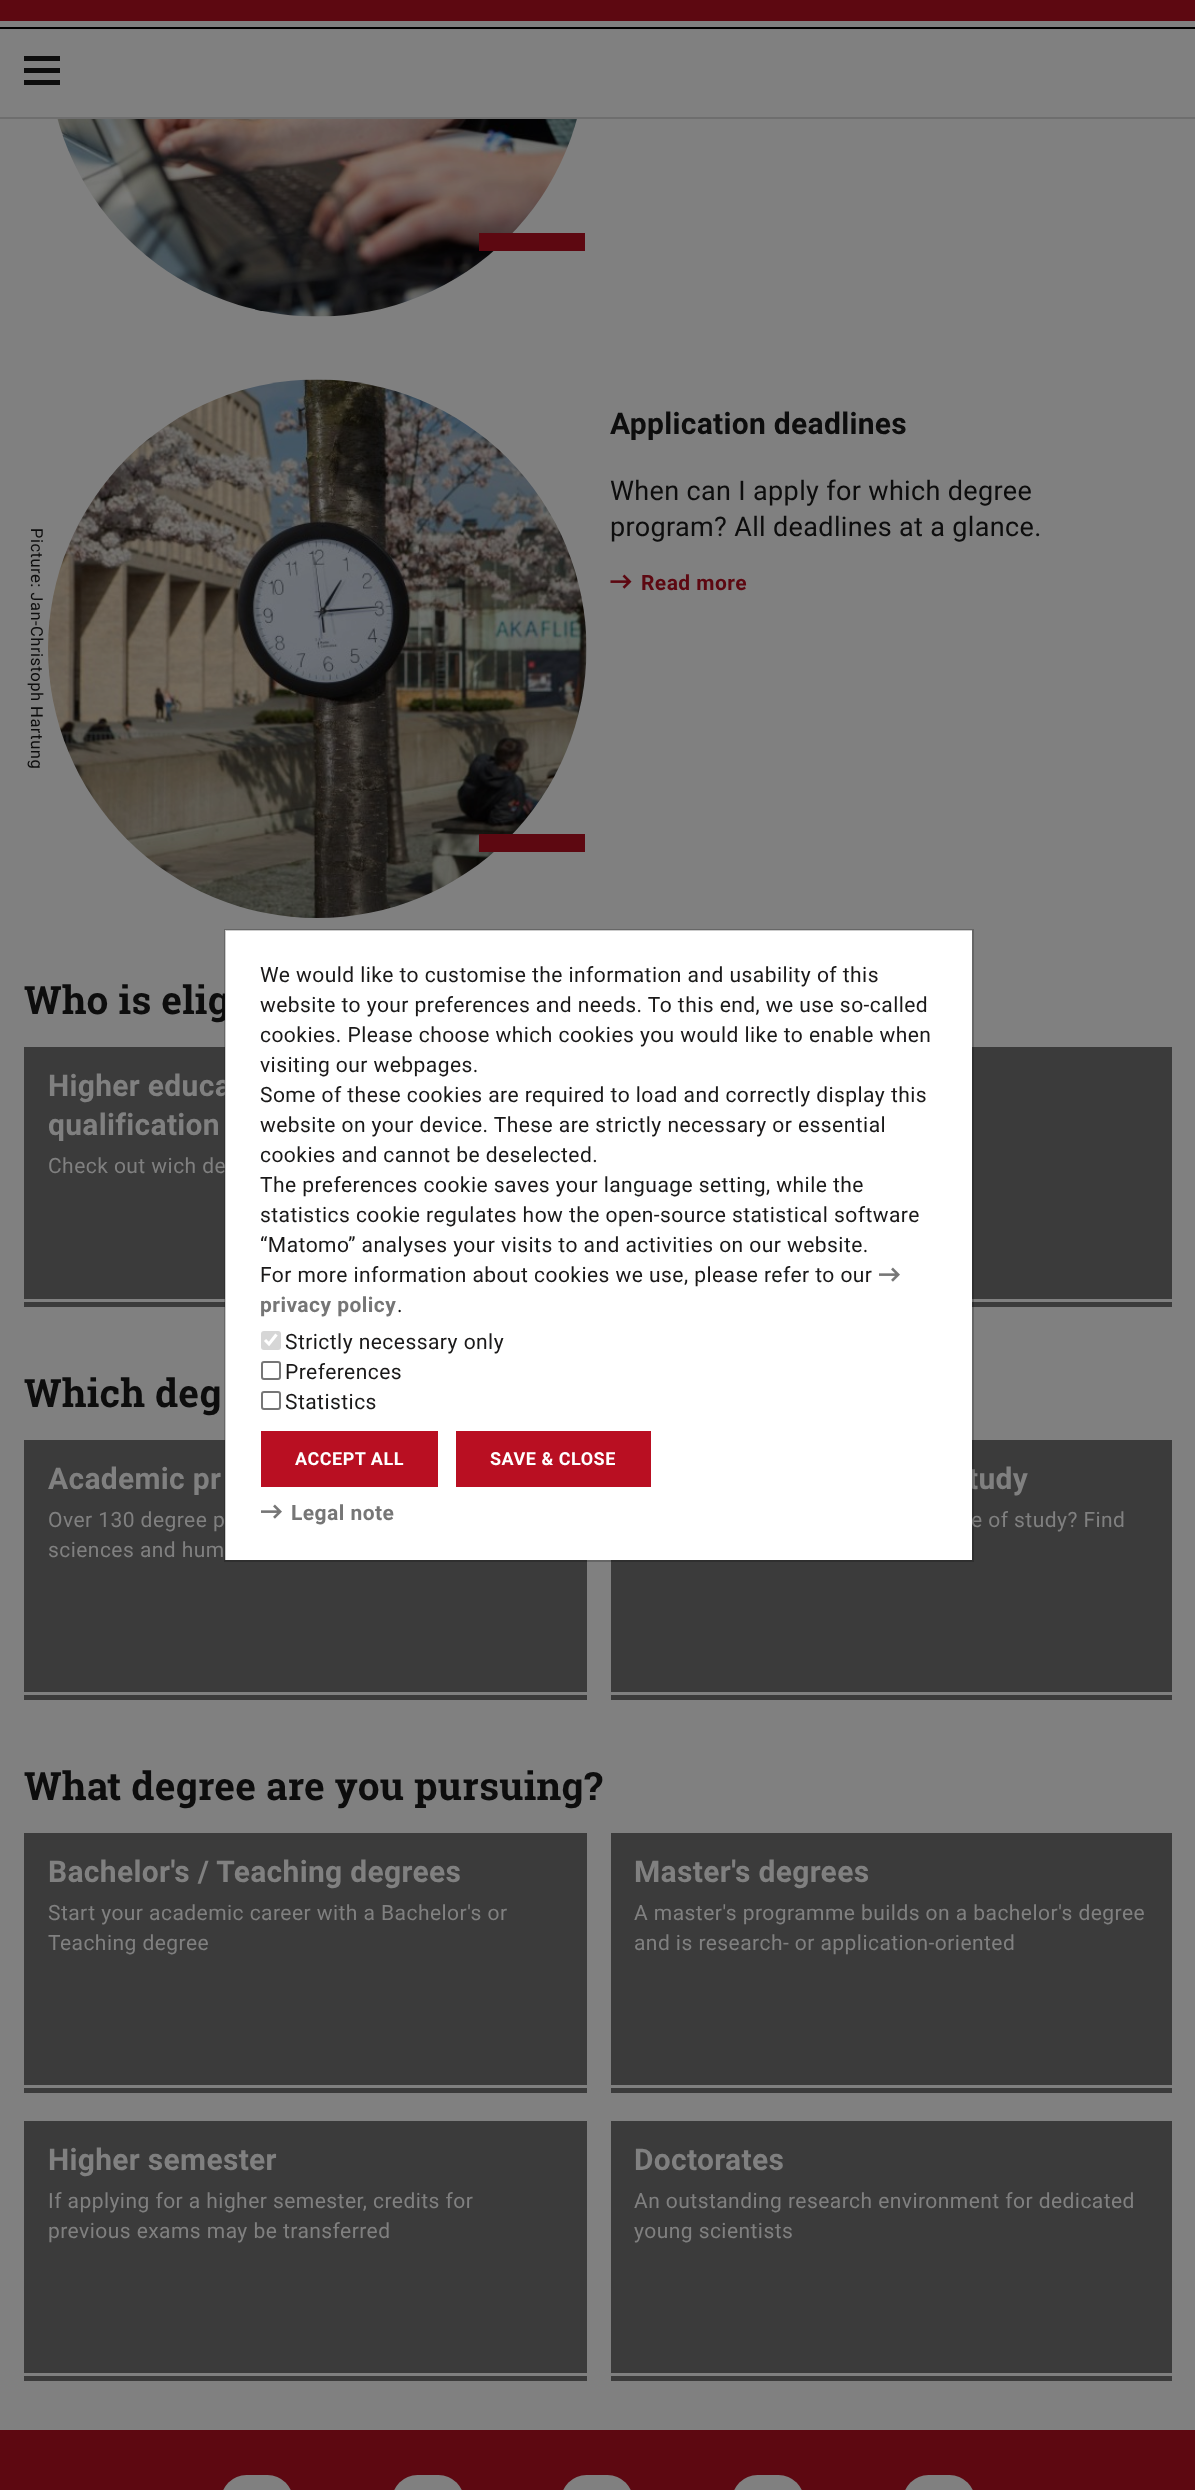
async function draw(canvas) {
  canvas.width = 1195;
  canvas.height = 2490;
  const ctx = canvas.getContext('2d');
  ctx.miterLimit = 4;
  ctx.fontKerning = 'normal';
  function label(s, x, y, font, color) {
    ctx.font = font;
    ctx.fillStyle = color;
    ctx.fillText(s, x, y);
  }
  function rect(x, y, w, h, color) {
    ctx.fillStyle = color;
    ctx.fillRect(x, y, w, h);
  }
  function roundedRect(x, y, w, h, r, color) {
    ctx.fillStyle = color;
    ctx.beginPath();
    ctx.roundRect(x, y, w, h, r);
    ctx.fill();
  }
  async function image(src, x, y, w, h) {
    const img = new Image();
    img.src = src;
    await img.decode();
    ctx.drawImage(img, x, y, w, h);
  }
  let path;

  rect(0, 0, 1195, 2490, '#808080');
  rect(0, 0, 1195, 21, '#5d0811');
  rect(0, 27, 1195, 2, '#000');
  rect(0, 117, 1195, 2, '#6e6e6e');
  rect(24, 68, 36, 5, '#0d0d0d');
  rect(24, 56, 36, 5, '#0d0d0d');
  rect(24, 80, 36, 5, '#0d0d0d');
  await image('assets/img1.png', 57, 119, 520, 198);
  rect(479, 233, 106, 18, '#5d0811');
  ctx.letterSpacing = '0.3px';
  label('Application deadlines', 610, 434, 'bold 30px Roboto', '#0d0d0d');
  ctx.letterSpacing = '0.35px';
  label('When can I apply for which degree', 610, 500, '27px Roboto', '#0d0d0d');
  label('program? All deadlines at a glance.', 610, 536, '27px Roboto', '#0d0d0d');
  await image('assets/img2.png', 610, 574, 22, 15);
  ctx.letterSpacing = '0.45px';
  label('Read more', 641, 590, 'bold 21px Roboto', '#5d0811');
  ctx.letterSpacing = '0.5px';
  ctx.font = '16.5px Roboto';
  ctx.fillStyle = '#0d0d0d';
  ctx.save();
  ctx.translate(31, 528);
  ctx.rotate(90 * Math.PI / 180);
  ctx.fillText('Picture: Jan-Christoph Hartung', 0, 0);
  ctx.restore();
  await image('assets/img3.png', 48, 379, 539, 539);
  rect(479, 834, 106, 18, '#5d0811');
  ctx.letterSpacing = '0.2px';
  label('Who is elig', 24, 1014, 'bold 39px Roboto Slab', '#0d0d0d');
  rect(24, 1047, 201, 252, '#3b3b3b');
  ctx.letterSpacing = '0.3px';
  label('Higher educa', 48, 1096, 'bold 30px Roboto', '#808080');
  label('qualification', 48, 1135, 'bold 30px Roboto', '#808080');
  ctx.letterSpacing = '0.45px';
  label('Check out wich de', 48, 1173, '21px Roboto', '#808080');
  rect(24, 1302, 201, 5, '#3b3b3b');
  rect(972, 1047, 200, 252, '#3b3b3b');
  rect(972, 1302, 200, 5, '#3b3b3b');
  ctx.letterSpacing = '0.2px';
  label('Which deg', 24, 1407, 'bold 39px Roboto Slab', '#0d0d0d');
  rect(24, 1440, 563, 252, '#3b3b3b');
  ctx.letterSpacing = '0.3px';
  label('Academic pr', 48, 1489, 'bold 30px Roboto', '#808080');
  ctx.letterSpacing = '0.45px';
  label('Over 130 degree p', 48, 1527, '21px Roboto', '#808080');
  label('sciences and hum', 48, 1557, '21px Roboto', '#808080');
  rect(24, 1695, 563, 5, '#3b3b3b');
  rect(611, 1440, 561, 252, '#3b3b3b');
  ctx.letterSpacing = '0.3px';
  label('tudy', 968, 1489, 'bold 30px Roboto', '#808080');
  ctx.letterSpacing = '0.45px';
  label('e of study? Find', 971, 1527, '21px Roboto', '#808080');
  rect(611, 1695, 561, 5, '#3b3b3b');
  ctx.letterSpacing = '0.2px';
  label('What degree are you pursuing?', 24, 1800, 'bold 39px Roboto Slab', '#0d0d0d');
  rect(24, 1833, 563, 252, '#3b3b3b');
  ctx.letterSpacing = '0.3px';
  label('Bachelor\'s / Teaching degrees', 48, 1882, 'bold 30px Roboto', '#808080');
  ctx.letterSpacing = '0.45px';
  label('Start your academic career with a Bachelor\'s or', 48, 1920, '21px Roboto', '#808080');
  label('Teaching degree', 48, 1950, '21px Roboto', '#808080');
  rect(24, 2088, 563, 5, '#3b3b3b');
  rect(611, 1833, 561, 252, '#3b3b3b');
  ctx.letterSpacing = '0.3px';
  label('Master\'s degrees', 634, 1882, 'bold 30px Roboto', '#808080');
  ctx.letterSpacing = '0.45px';
  label('A master\'s programme builds on a bachelor\'s degree', 634, 1920, '21px Roboto', '#808080');
  label('and is research- or application-oriented', 634, 1950, '21px Roboto', '#808080');
  rect(611, 2088, 561, 5, '#3b3b3b');
  rect(24, 2121, 563, 252, '#3b3b3b');
  ctx.letterSpacing = '0.3px';
  label('Higher semester', 48, 2170, 'bold 30px Roboto', '#808080');
  ctx.letterSpacing = '0.45px';
  label('If applying for a higher semester, credits for', 48, 2208, '21px Roboto', '#808080');
  label('previous exams may be transferred', 48, 2238, '21px Roboto', '#808080');
  rect(24, 2376, 563, 5, '#3b3b3b');
  rect(611, 2121, 561, 252, '#3b3b3b');
  ctx.letterSpacing = '0.3px';
  label('Doctorates', 634, 2170, 'bold 30px Roboto', '#808080');
  ctx.letterSpacing = '0.45px';
  label('An outstanding research environment for dedicated', 634, 2208, '21px Roboto', '#808080');
  label('young scientists', 634, 2238, '21px Roboto', '#808080');
  rect(611, 2376, 561, 5, '#3b3b3b');
  rect(0, 2430, 1195, 60, '#5d0811');
  roundedRect(221, 2475, 72, 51, 36, '#808080');
  roundedRect(392, 2475, 72, 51, 36, '#808080');
  roundedRect(561, 2475, 72, 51, 36, '#808080');
  roundedRect(732, 2475, 72, 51, 36, '#808080');
  roundedRect(903, 2475, 72, 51, 36, '#808080');
  rect(225, 930, 747, 630, '#fff');
  ctx.strokeStyle = '#00000033';
  ctx.lineWidth = 2;
  ctx.strokeRect(225, 930, 748, 631);
  label('We would like to customise the information and usability of this', 260, 982, '21px Roboto', '#1a1919');
  label('website to your preferences and needs. To this end, we use so-called', 260, 1012, '21px Roboto', '#1a1919');
  label('cookies. Please choose which cookies you would like to enable when', 260, 1042, '21px Roboto', '#1a1919');
  label('visiting our webpages.', 260, 1072, '21px Roboto', '#1a1919');
  label('Some of these cookies are required to load and correctly display this', 260, 1102, '21px Roboto', '#1a1919');
  label('website on your device. These are strictly necessary or essential', 260, 1132, '21px Roboto', '#1a1919');
  label('cookies and cannot be deselected.', 260, 1162, '21px Roboto', '#1a1919');
  label('The preferences cookie saves your language setting, while the', 260, 1192, '21px Roboto', '#1a1919');
  label('statistics cookie regulates how the open-source statistical software', 260, 1222, '21px Roboto', '#1a1919');
  label('“Matomo” analyses your visits to and activities on our website.', 260, 1252, '21px Roboto', '#1a1919');
  label('For more information about cookies we use, please refer to our', 260, 1282, '21px Roboto', '#1a1919');
  await image('assets/img4.png', 879, 1267, 21, 15);
  label('privacy policy', 260, 1312, 'bold 21px Roboto', '#767676');
  label('.', 397, 1312, '21px Roboto', '#1a1919');
  roundedRect(261, 1331, 20, 19, 3, '#d6d6d6');
  path = new Path2D('M265 1340L269 1344L276.5 1334.5');
  ctx.strokeStyle = '#fff';
  ctx.lineWidth = 3.1;
  ctx.stroke(path);
  label('Strictly necessary only', 285, 1349, '21px Roboto', '#1a1919');
  ctx.beginPath();
  ctx.roundRect(262, 1362, 18, 17, 2);
  ctx.strokeStyle = '#767676';
  ctx.lineWidth = 2;
  ctx.stroke();
  label('Preferences', 285, 1379, '21px Roboto', '#1a1919');
  ctx.beginPath();
  ctx.roundRect(262, 1392, 18, 17, 2);
  ctx.stroke();
  label('Statistics', 285, 1409, '21px Roboto', '#1a1919');
  rect(261, 1431, 177, 56, '#b90f22');
  ctx.letterSpacing = '0.5px';
  label('ACCEPT ALL', 295, 1465, 'bold 18px Roboto', '#fff');
  rect(456, 1431, 195, 56, '#b90f22');
  label('SAVE & CLOSE', 490, 1465, 'bold 18px Roboto', '#fff');
  await image('assets/img4.png', 261, 1504, 21, 15);
  ctx.letterSpacing = '0.45px';
  label('Legal note', 291, 1520, 'bold 21px Roboto', '#767676');
}

draw(document.querySelector('canvas'));
